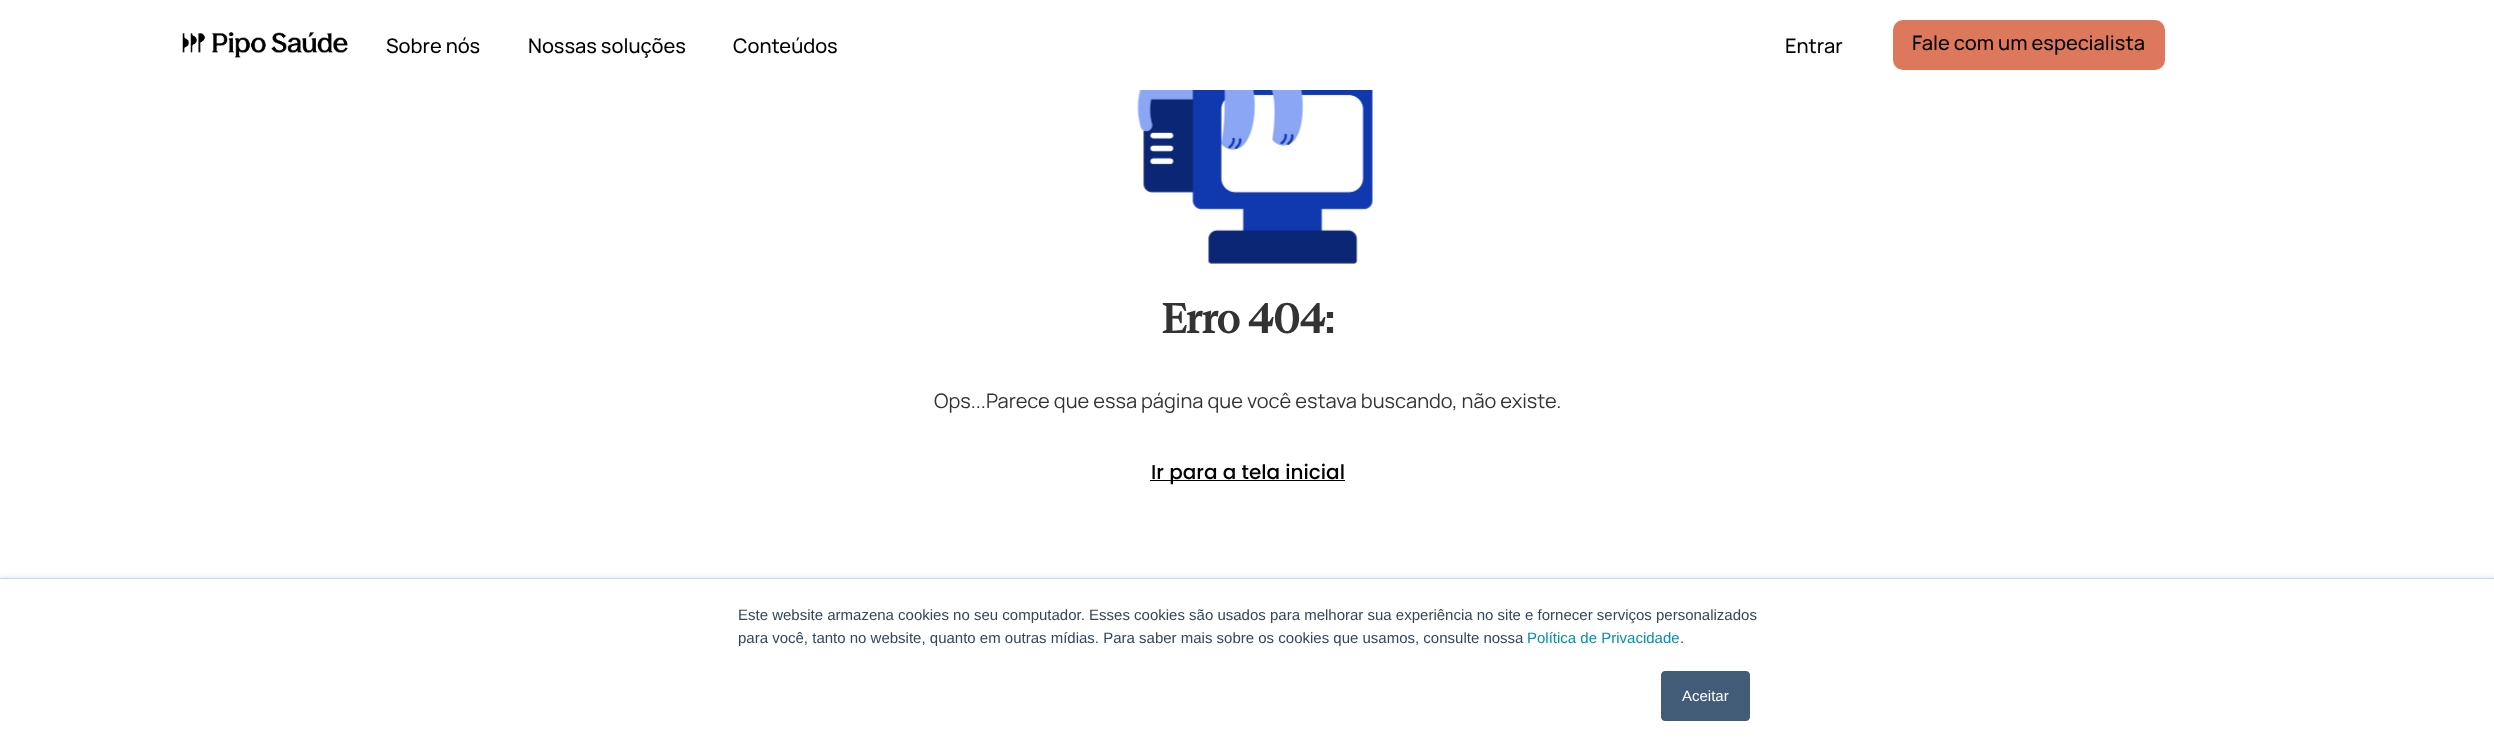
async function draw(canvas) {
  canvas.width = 2494;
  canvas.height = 753;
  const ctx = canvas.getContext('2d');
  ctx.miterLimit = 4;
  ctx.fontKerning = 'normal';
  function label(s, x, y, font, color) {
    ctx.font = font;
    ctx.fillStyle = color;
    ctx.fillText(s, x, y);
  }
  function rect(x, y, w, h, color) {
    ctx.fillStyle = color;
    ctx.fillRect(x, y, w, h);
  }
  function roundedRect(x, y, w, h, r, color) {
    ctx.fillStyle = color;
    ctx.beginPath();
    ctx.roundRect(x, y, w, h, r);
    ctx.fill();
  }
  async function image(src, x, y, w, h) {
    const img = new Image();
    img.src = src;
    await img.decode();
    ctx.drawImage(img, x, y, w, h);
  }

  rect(0, 0, 2494, 753, '#fff');
  await image('assets/img1.png', 182, 32, 166, 26);
  label('Sobre nós', 386, 53, '500 20px Manrope', '#000');
  label('Nossas soluções', 528, 53, '500 20px Manrope', '#000');
  label('Conteúdos', 733, 53, '500 20px Manrope', '#000');
  label('Entrar', 1785, 53, '500 20px Manrope', '#000');
  roundedRect(1893, 20, 272, 50, 10, '#de785c');
  label('Fale com um especialista', 1912, 50, '500 20px Manrope', '#000');
  await image('assets/img2.png', 1137, 90, 236, 174);
  label('Erro 404:', 1162, 333, 'bold 40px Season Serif', '#333');
  label('Ops...Parece que essa página que você estava buscando, não existe.', 934, 408, '20px Manrope', '#333');
  rect(1150, 480, 195, 1, '#000');
  label('Ir para a tela inicial', 1151, 479, '500 20px Poppins', '#000');
  ctx.fillStyle = '#eaf0f6';
  ctx.filter = 'blur(2px)';
  ctx.beginPath();
  ctx.rect(0, 576, 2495, 177);
  ctx.fill();
  ctx.filter = 'none';
  rect(0, 579, 2494, 174, '#fff');
  rect(0, 578, 2494, 1, '#cbd6e2');
  label('Este website armazena cookies no seu computador. Esses cookies são usados para melhorar sua experiência no site e fornecer serviços personalizados', 738, 620, '15px Liberation Sans', '#33475b');
  label('para você, tanto no website, quanto em outras mídias. Para saber mais sobre os cookies que usamos, consulte nossa', 738, 643, '15px Liberation Sans', '#33475b');
  label('Política de Privacidade', 1527, 643, '15px Liberation Sans', '#0091ae');
  label('.', 1680, 643, '15px Liberation Sans', '#33475b');
  ctx.fillStyle = '#425b76';
  ctx.beginPath();
  ctx.roundRect(1661.5, 671.5, 88, 49, 3.5);
  ctx.fill();
  ctx.strokeStyle = '#425b76';
  ctx.stroke();
  label('Aceitar', 1682, 701, '15px Liberation Sans', '#fff');
}

draw(document.querySelector('canvas'));
